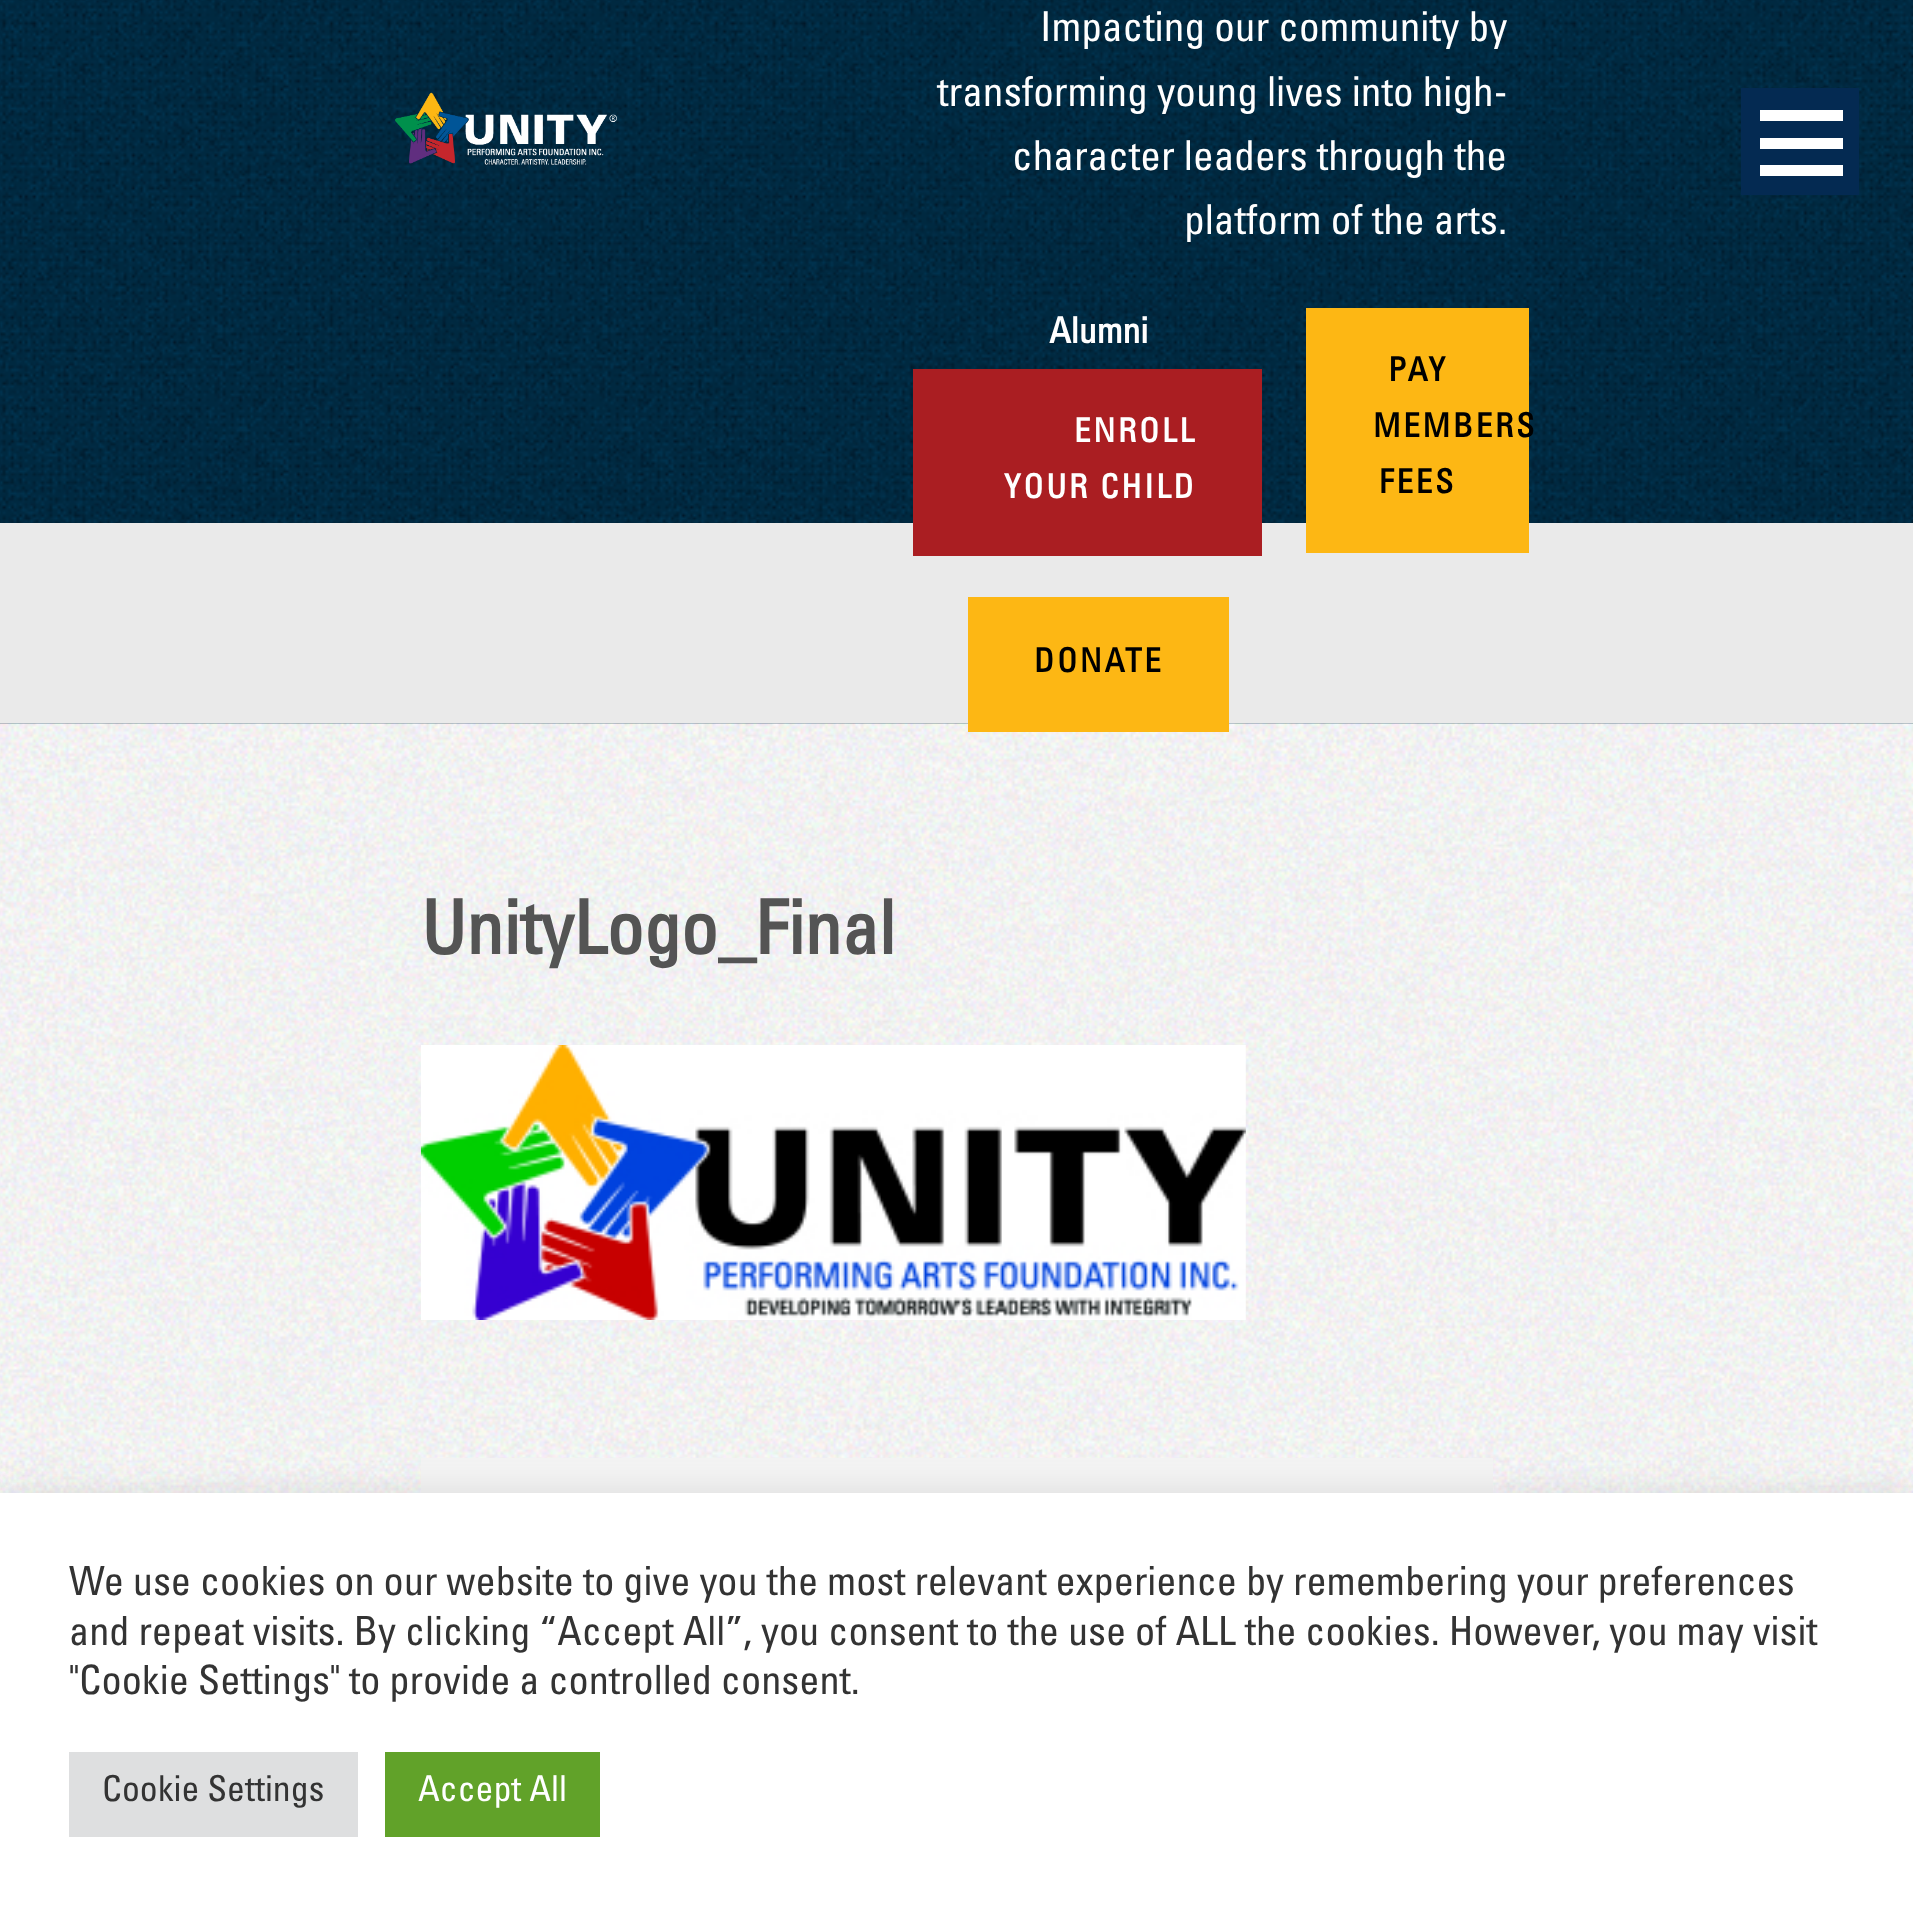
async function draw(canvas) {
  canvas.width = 1913;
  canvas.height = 1917;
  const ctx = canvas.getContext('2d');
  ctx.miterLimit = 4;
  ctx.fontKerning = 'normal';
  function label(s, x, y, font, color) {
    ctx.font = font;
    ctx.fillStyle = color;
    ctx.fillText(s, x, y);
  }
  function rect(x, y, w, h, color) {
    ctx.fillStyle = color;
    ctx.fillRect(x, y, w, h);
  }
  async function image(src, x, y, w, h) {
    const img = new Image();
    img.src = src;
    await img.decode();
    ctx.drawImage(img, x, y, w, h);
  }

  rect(0, 0, 1913, 1917, '#fff');
  await image('assets/img1.png', 0, 723, 1913, 1);
  await image('assets/img4.png', 0, 723, 1913, 770);
  await image('assets/img2.png', 0, 0, 1913, 724);
  label('Impacting our community by', 1040, 41, '41.25px Univers', '#fff');
  label('transforming young lives into high-', 937, 106, '41.25px Univers', '#fff');
  label('character leaders through the', 1012, 170, '41.25px Univers', '#fff');
  label('platform of the arts.', 1184, 234, '41.25px Univers', '#fff');
  label('Alumni', 1049, 343, 'bold 35.75px Univers', '#fff');
  rect(0, 523, 1913, 200, '#eaeaea');
  rect(913, 369, 349, 187, '#aa1e22');
  ctx.letterSpacing = '2.75px';
  label('ENROLL', 1074, 442, 'bold 33px Univers', '#fff');
  label('YOUR CHILD', 1004, 498, 'bold 33px Univers', '#fff');
  rect(968, 597, 261, 135, '#fdb714');
  label('DONATE', 1034, 672, 'bold 33px Univers', '#000');
  rect(1306, 308, 223, 245, '#fdb714');
  label('PAY', 1388, 381, 'bold 33px Univers', '#000');
  label('MEMBERS', 1373, 437, 'bold 33px Univers', '#000');
  label('FEES', 1379, 493, 'bold 33px Univers', '#000');
  await image('assets/img3.png', 395, 92, 222, 73);
  rect(1741, 88, 118, 107, '#042a52');
  rect(1760, 165, 83, 11, '#fff');
  rect(1760, 138, 83, 11, '#fff');
  rect(1760, 110, 83, 11, '#fff');
  ctx.letterSpacing = '0px';
  label('UnityLogo_Final', 421, 954, 'bold 74.25px Univers', '#545454');
  await image('assets/img5.png', 420, 1045, 826, 275);
  rect(421, 1458, 1072, 35, '#f3f3f3');
  ctx.fillStyle = '#acabab4d';
  ctx.filter = 'blur(14px)';
  ctx.beginPath();
  ctx.rect(0, 1491, 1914, 426);
  ctx.fill();
  ctx.filter = 'none';
  rect(0, 1493, 1913, 424, '#fff');
  label('We use cookies on our website to give you the most relevant experience by remembering your preferences', 69, 1595, '40.35px Univers', '#333');
  label('and repeat visits. By clicking “Accept All”, you consent to the use of ALL the cookies. However, you may visit', 69, 1645, '40.35px Univers', '#333');
  label('"Cookie Settings" to provide a controlled consent.', 69, 1694, '40.35px Univers', '#333');
  rect(69, 1752, 289, 85, '#dedfe0');
  label('Cookie Settings', 102, 1801, '35.75px Univers', '#333');
  rect(385, 1752, 215, 85, '#61a229');
  label('Accept All', 418, 1801, '35.75px Univers', '#fff');
}

draw(document.querySelector('canvas'));
